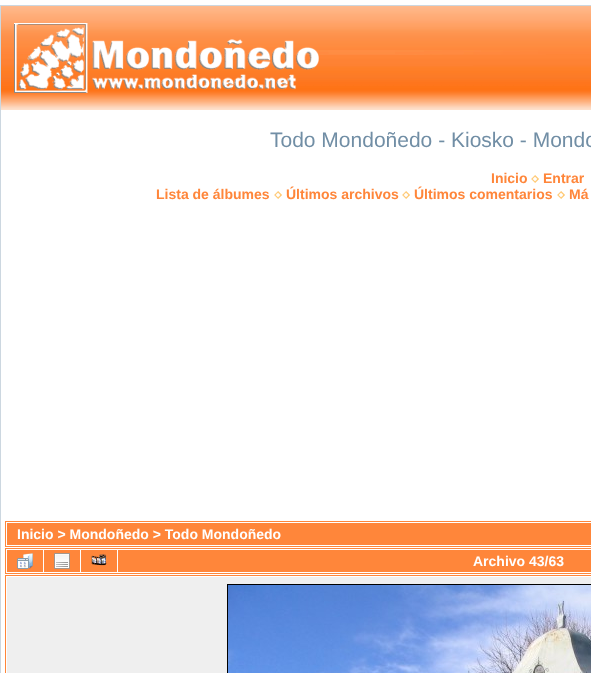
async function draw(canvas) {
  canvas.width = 591;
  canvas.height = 673;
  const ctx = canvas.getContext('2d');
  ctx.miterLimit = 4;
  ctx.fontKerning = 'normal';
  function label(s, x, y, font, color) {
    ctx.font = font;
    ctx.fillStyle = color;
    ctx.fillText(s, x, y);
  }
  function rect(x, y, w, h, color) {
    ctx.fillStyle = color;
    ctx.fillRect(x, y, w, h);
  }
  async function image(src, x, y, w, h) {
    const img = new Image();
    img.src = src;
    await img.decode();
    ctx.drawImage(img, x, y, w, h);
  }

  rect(0, 0, 591, 673, '#fff');
  ctx.strokeStyle = '#ccd7e0';
  ctx.strokeRect(0.5, 5.5, 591, 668);
  await image('assets/img1.png', 1, 6, 590, 104);
  label('Todo Mondoñedo - Kiosko - Mondo', 270, 147, '21px Liberation Sans', '#718ea5');
  label('Inicio', 491, 183, 'bold 14px Liberation Sans', '#ff863a');
  await image('assets/img2.png', 531, 175, 8, 8);
  label('Entrar', 543, 183, 'bold 14px Liberation Sans', '#ff863a');
  label('Lista de álbumes', 156, 199, 'bold 14px Liberation Sans', '#ff863a');
  await image('assets/img2.png', 274, 191, 8, 8);
  label('Últimos archivos', 286, 199, 'bold 14px Liberation Sans', '#ff863a');
  await image('assets/img2.png', 402, 191, 8, 8);
  label('Últimos comentarios', 414, 199, 'bold 14px Liberation Sans', '#ff863a');
  await image('assets/img2.png', 557, 191, 8, 8);
  label('Má', 569, 199, 'bold 14px Liberation Sans', '#ff863a');
  ctx.strokeStyle = '#ff863a';
  ctx.strokeRect(5.5, 521.5, 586, 25);
  rect(7, 523, 584, 22, '#ff863a');
  label('Inicio > Mondoñedo > Todo Mondoñedo', 17, 539, 'bold 14px Liberation Sans', '#fff');
  ctx.strokeRect(5.5, 548.5, 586, 25);
  rect(7, 550, 36, 22, '#ff863a');
  await image('assets/img3.png', 17, 553, 16, 16);
  rect(44, 550, 36, 22, '#ff863a');
  await image('assets/img4.png', 54, 553, 16, 16);
  rect(81, 550, 36, 22, '#ff863a');
  await image('assets/img5.png', 91, 554, 16, 12);
  rect(118, 550, 473, 22, '#ff863a');
  label('Archivo 43/63', 473, 566, 'bold 14px Liberation Sans', '#fff');
  ctx.strokeRect(5.5, 575.5, 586, 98);
  rect(7, 577, 584, 96, '#efefef');
  ctx.strokeStyle = '#000';
  ctx.strokeRect(227.5, 584.5, 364, 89);
  await image('assets/img6.png', 228, 585, 363, 88);
}

draw(document.querySelector('canvas'));
